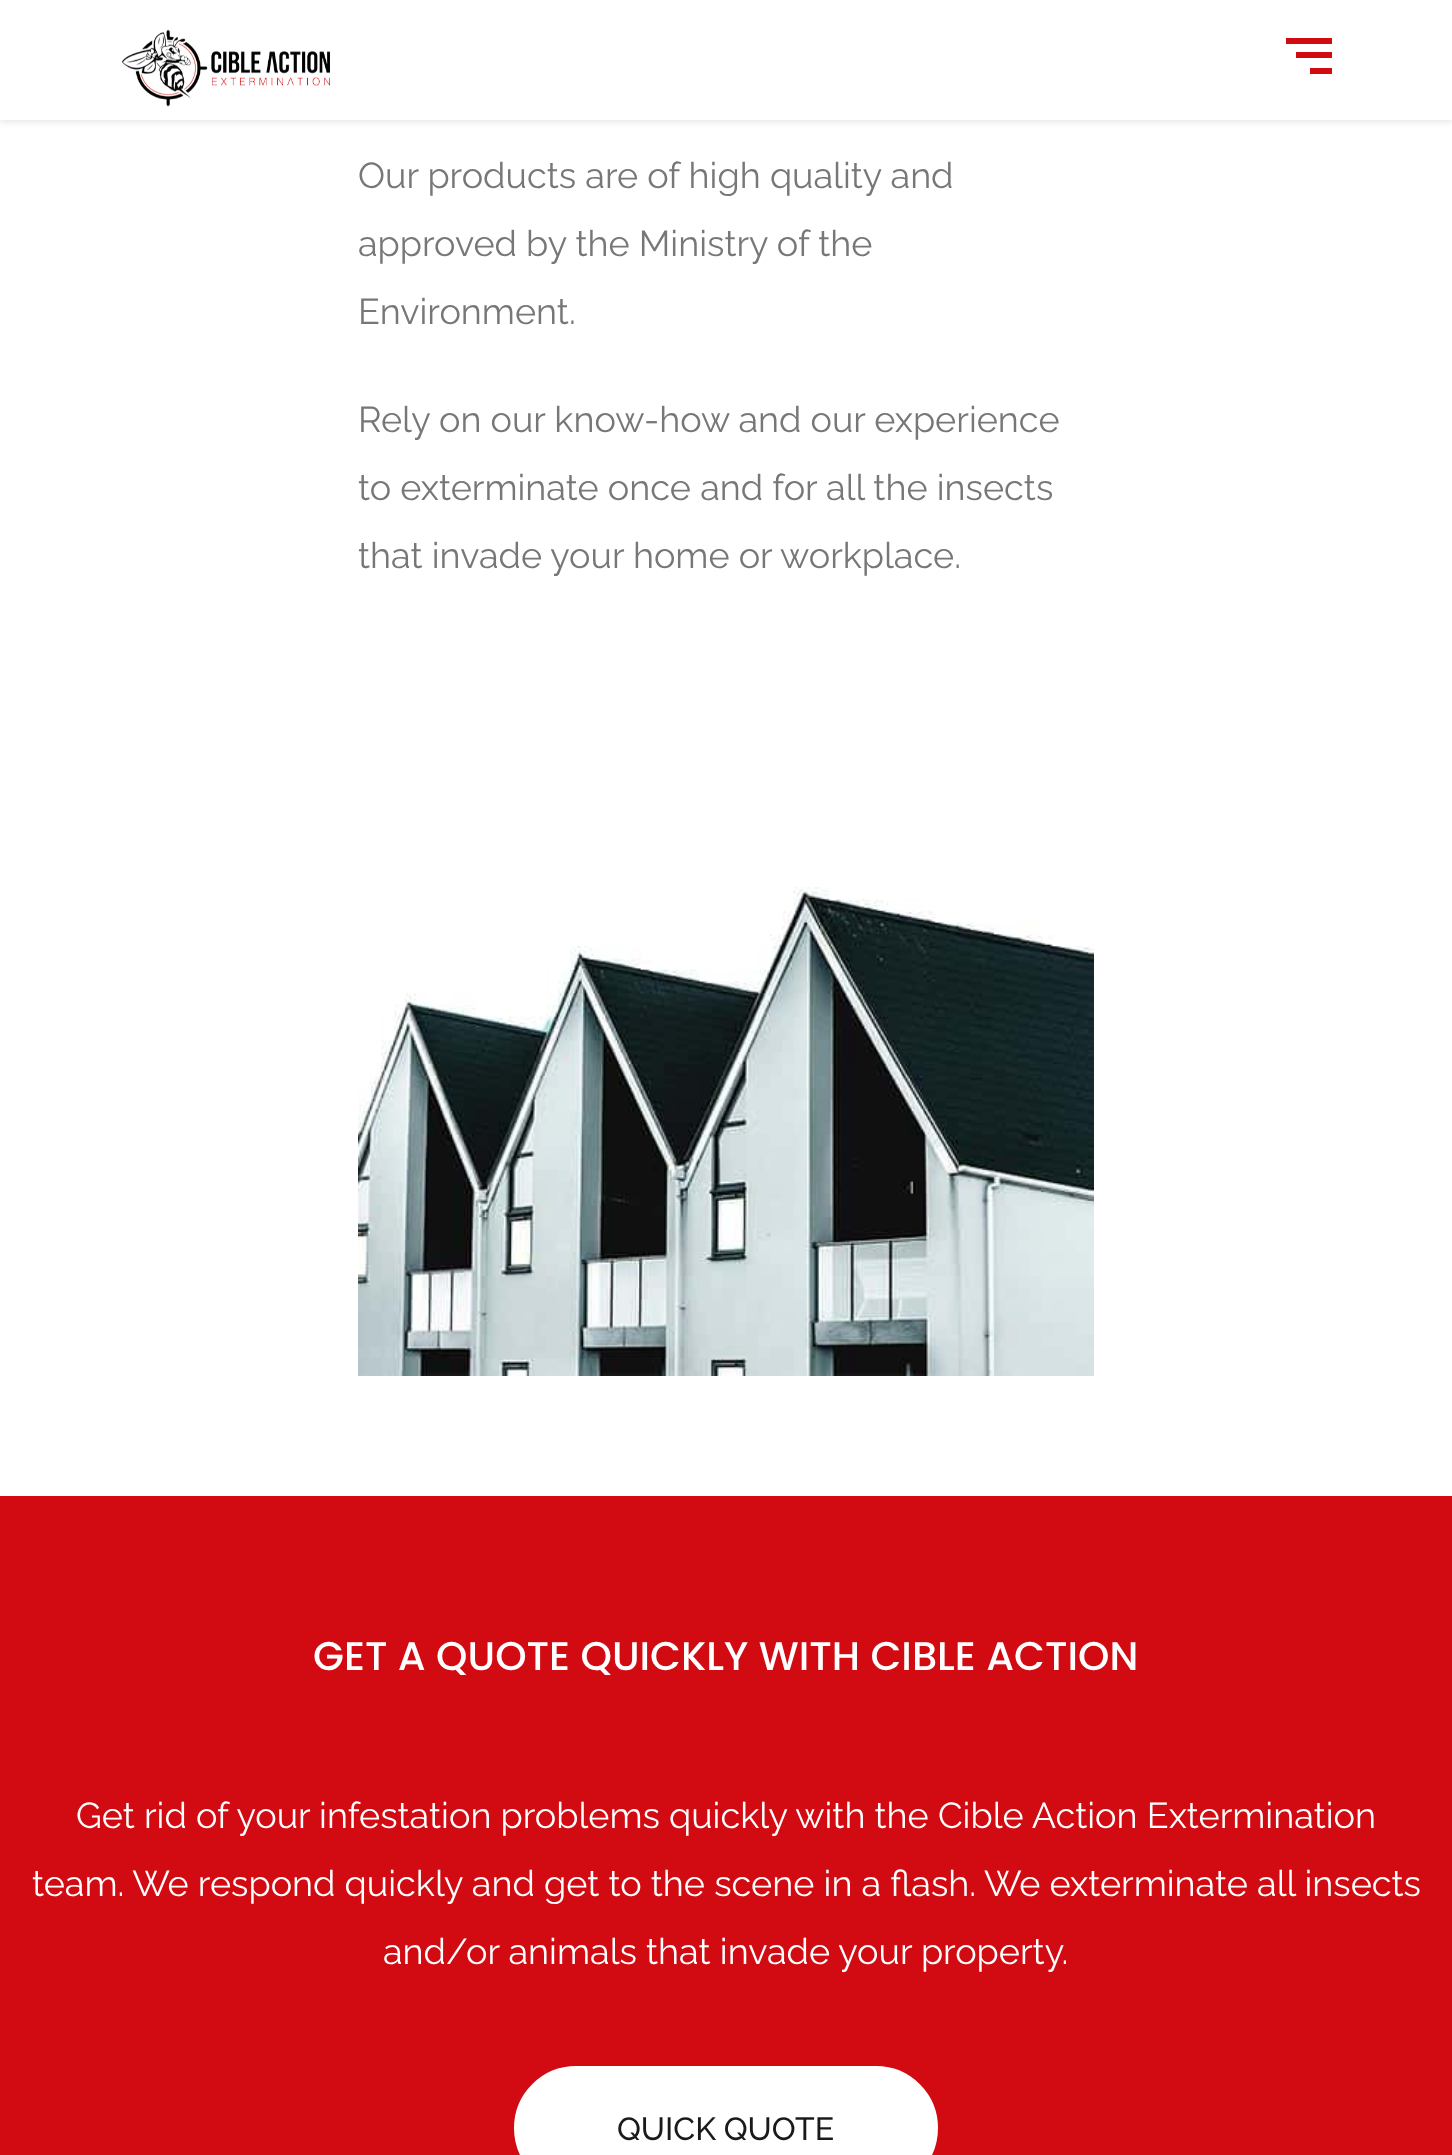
async function draw(canvas) {
  canvas.width = 1452;
  canvas.height = 2155;
  const ctx = canvas.getContext('2d');
  ctx.miterLimit = 4;
  ctx.fontKerning = 'normal';
  function label(s, x, y, font, color) {
    ctx.font = font;
    ctx.fillStyle = color;
    ctx.fillText(s, x, y);
  }
  function rect(x, y, w, h, color) {
    ctx.fillStyle = color;
    ctx.fillRect(x, y, w, h);
  }
  async function image(src, x, y, w, h) {
    const img = new Image();
    img.src = src;
    await img.decode();
    ctx.drawImage(img, x, y, w, h);
  }

  rect(0, 0, 1452, 2155, '#fff');
  ctx.fillStyle = '#0000001a';
  ctx.filter = 'blur(3px)';
  ctx.beginPath();
  ctx.rect(0, 2, 1452, 120);
  ctx.fill();
  ctx.filter = 'none';
  rect(0, 0, 1452, 120, '#fff');
  await image('assets/img1.png', 122, 29, 208, 78);
  rect(1296, 52, 36, 6, '#d20b12');
  rect(1286, 38, 46, 6, '#d20b12');
  rect(1310, 68, 22, 6, '#d20b12');
  label('Our products are of high quality and', 358, 188, '100 36px Raleway', '#777');
  label('approved by the Ministry of the', 358, 256, '100 36px Raleway', '#777');
  label('Environment.', 358, 324, '100 36px Raleway', '#777');
  label('Rely on our know-how and our experience', 358, 432, '100 36px Raleway', '#777');
  label('to exterminate once and for all the insects', 358, 500, '100 36px Raleway', '#777');
  label('that invade your home or workplace.', 358, 568, '100 36px Raleway', '#777');
  await image('assets/img2.png', 358, 887, 736, 489);
  rect(0, 1496, 1452, 659, '#d20b12');
  label('GET A QUOTE QUICKLY WITH CIBLE ACTION', 313, 1670, '500 40px Poppins', '#fff');
  label('Get rid of your infestation problems quickly with the Cible Action Extermination', 76, 1828, '100 36px Raleway', '#fff');
  label('team. We respond quickly and get to the scene in a flash. We exterminate all insects', 32, 1896, '100 36px Raleway', '#fff');
  label('and/or animals that invade your property.', 383, 1964, '100 36px Raleway', '#fff');
  ctx.beginPath();
  ctx.roundRect(516, 2068, 420, 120, 60);
  ctx.fill();
  ctx.strokeStyle = '#fff';
  ctx.lineWidth = 4;
  ctx.stroke();
  label('QUICK QUOTE', 617, 2140, '500 32px Raleway', '#1a1a1a');
}

draw(document.querySelector('canvas'));
